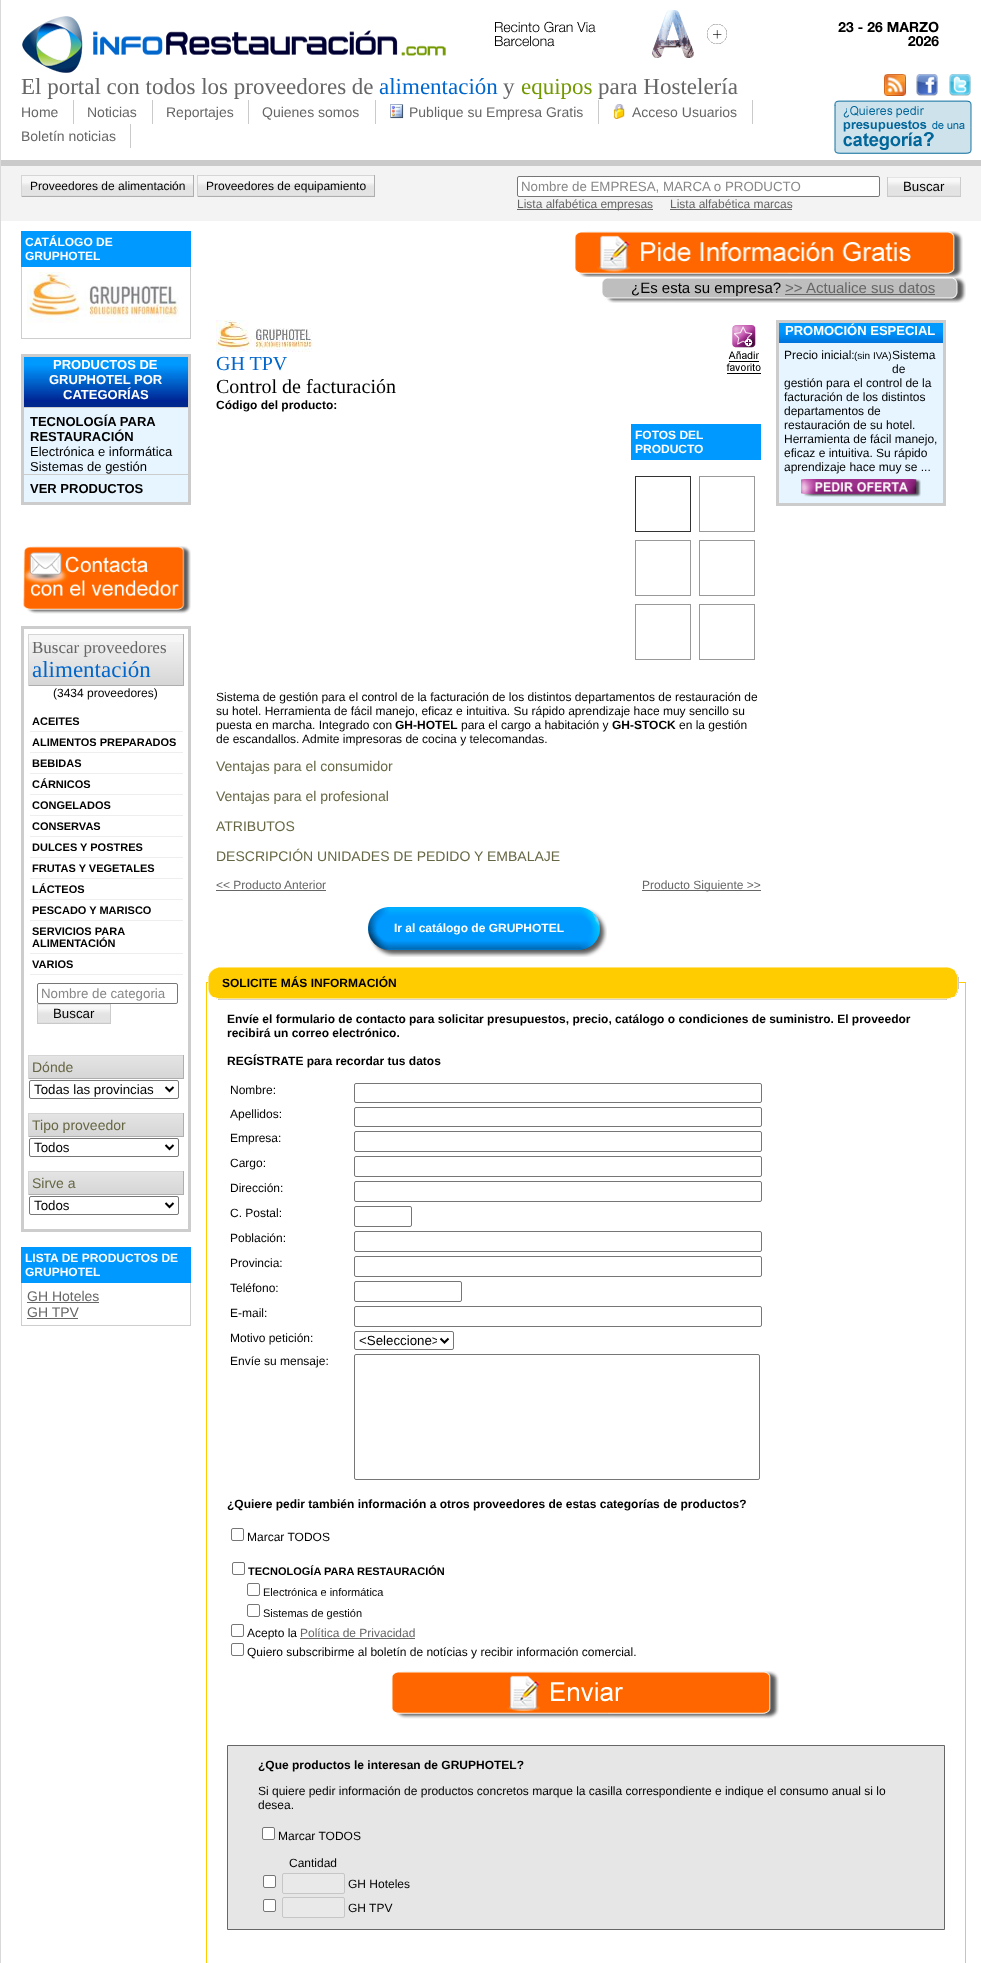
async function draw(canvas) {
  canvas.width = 981;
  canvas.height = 1963;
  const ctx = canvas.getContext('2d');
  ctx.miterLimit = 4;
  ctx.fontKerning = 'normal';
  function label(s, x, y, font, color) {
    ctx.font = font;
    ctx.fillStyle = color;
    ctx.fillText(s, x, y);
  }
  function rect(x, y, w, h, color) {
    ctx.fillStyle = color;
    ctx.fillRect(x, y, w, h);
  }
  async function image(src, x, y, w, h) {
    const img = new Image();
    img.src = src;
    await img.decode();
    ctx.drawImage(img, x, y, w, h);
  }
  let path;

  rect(0, 0, 981, 1963, '#fff');
  await image('assets/img1.png', 0, 0, 1, 1963);
  await image('assets/img2.png', 22, 16, 424, 57);
  await image('assets/img3.png', 495, 10, 444, 48);
  label('El portal con todos los proveedores de', 21, 94, '23px Liberation Serif', '#666');
  label('alimentación', 379, 94, '23px Liberation Serif', '#06c');
  label('y', 503, 94, '23px Liberation Serif', '#666');
  label('equipos', 521, 94, '23px Liberation Serif', '#739900');
  label('para Hostelería', 598, 94, '23px Liberation Serif', '#666');
  await image('assets/img4.png', 884, 74, 22, 22);
  await image('assets/img5.png', 916, 74, 22, 22);
  await image('assets/img6.png', 949, 74, 22, 22);
  rect(1, 160, 980, 6, '#cacaca');
  rect(73, 100, 1, 24, '#cacaca');
  label('Home', 21, 117, '14px Liberation Sans', '#666');
  rect(152, 100, 1, 24, '#cacaca');
  label('Noticias', 87, 117, '14px Liberation Sans', '#666');
  rect(248, 100, 1, 24, '#cacaca');
  label('Reportajes', 166, 117, '14px Liberation Sans', '#666');
  rect(375, 100, 1, 24, '#cacaca');
  label('Quienes somos', 262, 117, '14px Liberation Sans', '#666');
  rect(598, 100, 1, 24, '#cacaca');
  await image('assets/img7.png', 390, 104, 14, 15);
  label('Publique su Empresa Gratis', 409, 117, '14px Liberation Sans', '#666');
  rect(752, 100, 1, 24, '#cacaca');
  await image('assets/img8.png', 613, 104, 12, 15);
  label('Acceso Usuarios', 632, 117, '14px Liberation Sans', '#666');
  rect(130, 124, 1, 24, '#cacaca');
  label('Boletín noticias', 21, 141, '14px Liberation Sans', '#666');
  await image('assets/img9.png', 834, 100, 138, 54);
  rect(1, 166, 980, 55, '#f3f3f3');
  rect(22, 176, 171, 7, '#f6f6f6');
  await image('assets/img10.png', 22, 183, 171, 13);
  label('Proveedores de alimentación', 30, 190, '12px Liberation Sans', '#000');
  rect(21, 175, 173, 1, '#d5d5d5');
  rect(193, 175, 1, 22, '#aeaeae');
  rect(21, 196, 173, 1, '#aeaeae');
  rect(21, 175, 1, 22, '#d5d5d5');
  rect(198, 176, 176, 7, '#f6f6f6');
  await image('assets/img11.png', 198, 183, 176, 13);
  label('Proveedores de equipamiento', 206, 190, '12px Liberation Sans', '#000');
  rect(197, 175, 178, 1, '#d5d5d5');
  rect(374, 175, 1, 22, '#aeaeae');
  rect(197, 196, 178, 1, '#aeaeae');
  rect(197, 175, 1, 22, '#d5d5d5');
  ctx.fillStyle = '#fff';
  ctx.beginPath();
  ctx.roundRect(517.5, 176.5, 362, 20, 1.5);
  ctx.fill();
  ctx.strokeStyle = '#767676';
  ctx.stroke();
  label('Nombre de EMPRESA, MARCA o PRODUCTO', 521, 191, '13.3px Liberation Sans', '#888');
  await image('assets/img12.png', 888, 178, 72, 18);
  rect(887, 177, 74, 1, '#e4e4e4');
  rect(960, 177, 1, 20, '#ccc');
  rect(887, 196, 74, 1, '#c9c9c9');
  rect(887, 177, 1, 20, '#cacaca');
  label('Buscar', 903, 191, '13.3px Liberation Sans', '#000');
  rect(517, 209, 136, 1, '#666');
  label('Lista alfabética empresas', 517, 208, '12px Liberation Sans', '#666');
  label('Lista alfabética marcas', 670, 208, '12px Liberation Sans', '#666');
  rect(670, 209, 122, 1, '#666');
  rect(21, 231, 170, 36, '#09f');
  label('CATÁLOGO DE', 25, 246, 'bold 12px Liberation Sans', '#fff');
  label('GRUPHOTEL', 25, 260, 'bold 12px Liberation Sans', '#fff');
  rect(190, 267, 1, 72, '#cecece');
  rect(21, 338, 170, 1, '#cecece');
  rect(21, 267, 1, 72, '#cecece');
  await image('assets/img13.png', 27, 272, 152, 51);
  ctx.strokeStyle = '#ccc';
  ctx.lineWidth = 3;
  ctx.strokeRect(22.5, 355.5, 167, 148);
  rect(24, 402, 164, 5, '#00278d');
  await image('assets/img14.png', 24, 357, 164, 45);
  label('PRODUCTOS DE', 53, 369, 'bold 13px Liberation Sans', '#fff');
  label('GRUPHOTEL POR', 49, 384, 'bold 13px Liberation Sans', '#fff');
  label('CATEGORÍAS', 63, 399, 'bold 13px Liberation Sans', '#fff');
  rect(24, 408, 164, 94, '#e6f5ff');
  rect(24, 407, 164, 1, '#ccc');
  label('TECNOLOGÍA PARA', 30, 426, 'bold 13px Liberation Sans', '#000');
  label('RESTAURACIÓN', 30, 441, 'bold 13px Liberation Sans', '#000');
  label('Electrónica e informática', 30, 456, '13px Liberation Sans', '#000');
  label('Sistemas de gestión', 30, 471, '13px Liberation Sans', '#000');
  rect(24, 474, 164, 1, '#ccc');
  label('VER PRODUCTOS', 30, 493, 'bold 13px Liberation Sans', '#000');
  await image('assets/img15.png', 23, 546, 168, 68);
  ctx.strokeStyle = '#cdcdcd';
  ctx.strokeRect(22.5, 627.5, 167, 603);
  rect(29, 635, 154, 7, '#f6f6f6');
  await image('assets/img16.png', 29, 642, 154, 43);
  rect(28, 634, 156, 1, '#d5d5d5');
  rect(183, 634, 1, 52, '#aeaeae');
  rect(28, 685, 156, 1, '#aeaeae');
  rect(28, 634, 1, 52, '#d5d5d5');
  label('Buscar proveedores', 32, 653, '17px Liberation Serif', '#666');
  label('alimentación', 32, 677, '23px Liberation Serif', '#06c');
  label('(3434 proveedores)', 53, 697, '12px Liberation Sans', '#000');
  rect(29, 731, 154, 1, '#eee');
  rect(29, 731, 1, 1, '#fff');
  label('ACEITES', 32, 725, 'bold 11px Liberation Sans', '#000');
  rect(29, 752, 154, 1, '#eee');
  rect(29, 752, 1, 1, '#fff');
  label('ALIMENTOS PREPARADOS', 32, 746, 'bold 11px Liberation Sans', '#000');
  rect(29, 773, 154, 1, '#eee');
  rect(29, 773, 1, 1, '#fff');
  label('BEBIDAS', 32, 767, 'bold 11px Liberation Sans', '#000');
  rect(29, 794, 154, 1, '#eee');
  rect(29, 794, 1, 1, '#fff');
  label('CÁRNICOS', 32, 788, 'bold 11px Liberation Sans', '#000');
  rect(29, 815, 154, 1, '#eee');
  rect(29, 815, 1, 1, '#fff');
  label('CONGELADOS', 32, 809, 'bold 11px Liberation Sans', '#000');
  rect(29, 836, 154, 1, '#eee');
  rect(29, 836, 1, 1, '#fff');
  label('CONSERVAS', 32, 830, 'bold 11px Liberation Sans', '#000');
  rect(29, 857, 154, 1, '#eee');
  rect(29, 857, 1, 1, '#fff');
  label('DULCES Y POSTRES', 32, 851, 'bold 11px Liberation Sans', '#000');
  rect(29, 878, 154, 1, '#eee');
  rect(29, 878, 1, 1, '#fff');
  label('FRUTAS Y VEGETALES', 32, 872, 'bold 11px Liberation Sans', '#000');
  rect(29, 899, 154, 1, '#eee');
  rect(29, 899, 1, 1, '#fff');
  label('LÁCTEOS', 32, 893, 'bold 11px Liberation Sans', '#000');
  rect(29, 920, 154, 1, '#eee');
  rect(29, 920, 1, 1, '#fff');
  label('PESCADO Y MARISCO', 32, 914, 'bold 11px Liberation Sans', '#000');
  rect(29, 953, 154, 1, '#eee');
  rect(29, 953, 1, 1, '#fff');
  label('SERVICIOS PARA', 32, 935, 'bold 11px Liberation Sans', '#000');
  label('ALIMENTACIÓN', 32, 947, 'bold 11px Liberation Sans', '#000');
  rect(29, 974, 154, 1, '#eee');
  rect(29, 974, 1, 1, '#fff');
  label('VARIOS', 32, 968, 'bold 11px Liberation Sans', '#000');
  ctx.beginPath();
  ctx.roundRect(37.5, 983.5, 140, 20, 1.5);
  ctx.strokeStyle = '#767676';
  ctx.lineWidth = 1;
  ctx.stroke();
  label('Nombre de categoria', 41, 998, '13.3px Liberation Sans', '#888');
  await image('assets/img12.png', 38, 1005, 72, 18);
  rect(37, 1004, 74, 1, '#e4e4e4');
  rect(110, 1004, 1, 20, '#ccc');
  rect(37, 1023, 74, 1, '#c9c9c9');
  rect(37, 1004, 1, 20, '#cacaca');
  label('Buscar', 53, 1018, '13.3px Liberation Sans', '#000');
  await image('assets/img17.png', 29, 1056, 154, 22);
  rect(28, 1055, 156, 1, '#d5d5d5');
  rect(183, 1055, 1, 24, '#aeaeae');
  rect(28, 1078, 156, 1, '#aeaeae');
  rect(28, 1055, 1, 24, '#d5d5d5');
  label('Dónde', 32, 1072, '14px Liberation Sans', '#664');
  ctx.beginPath();
  ctx.roundRect(29.5, 1080.5, 149, 18, 1.5);
  ctx.stroke();
  path = new Path2D('M165.5 1087L169.5 1091L173.5 1087');
  ctx.strokeStyle = '#000';
  ctx.lineWidth = 2;
  ctx.stroke(path);
  label('Todas las provincias', 34, 1094, '13.3px Liberation Sans', '#000');
  await image('assets/img17.png', 29, 1114, 154, 22);
  rect(28, 1113, 156, 1, '#d5d5d5');
  rect(183, 1113, 1, 24, '#aeaeae');
  rect(28, 1136, 156, 1, '#aeaeae');
  rect(28, 1113, 1, 24, '#d5d5d5');
  label('Tipo proveedor', 32, 1130, '14px Liberation Sans', '#664');
  ctx.beginPath();
  ctx.roundRect(29.5, 1138.5, 149, 18, 1.5);
  ctx.strokeStyle = '#767676';
  ctx.lineWidth = 1;
  ctx.stroke();
  path = new Path2D('M165.5 1145L169.5 1149L173.5 1145');
  ctx.strokeStyle = '#000';
  ctx.lineWidth = 2;
  ctx.stroke(path);
  label('Todos', 34, 1152, '13.3px Liberation Sans', '#000');
  await image('assets/img17.png', 29, 1172, 154, 22);
  rect(28, 1171, 156, 1, '#d5d5d5');
  rect(183, 1171, 1, 24, '#aeaeae');
  rect(28, 1194, 156, 1, '#aeaeae');
  rect(28, 1171, 1, 24, '#d5d5d5');
  label('Sirve a', 32, 1188, '14px Liberation Sans', '#664');
  ctx.beginPath();
  ctx.roundRect(29.5, 1196.5, 149, 18, 1.5);
  ctx.strokeStyle = '#767676';
  ctx.lineWidth = 1;
  ctx.stroke();
  path = new Path2D('M165.5 1203L169.5 1207L173.5 1203');
  ctx.strokeStyle = '#000';
  ctx.lineWidth = 2;
  ctx.stroke(path);
  label('Todos', 34, 1210, '13.3px Liberation Sans', '#000');
  rect(21, 1247, 170, 36, '#09f');
  label('LISTA DE PRODUCTOS DE', 25, 1262, 'bold 12px Liberation Sans', '#fff');
  label('GRUPHOTEL', 25, 1276, 'bold 12px Liberation Sans', '#fff');
  rect(190, 1283, 1, 43, '#cecece');
  rect(21, 1325, 170, 1, '#cecece');
  rect(21, 1283, 1, 43, '#cecece');
  label('GH Hoteles', 27, 1301, '14px Liberation Sans', '#666');
  rect(27, 1302, 72, 1, '#666');
  label('GH TPV', 27, 1317, '14px Liberation Sans', '#666');
  rect(27, 1318, 51, 1, '#666');
  await image('assets/img18.png', 575, 231, 388, 46);
  await image('assets/img19.png', 602, 277, 364, 26);
  label('¿Es esta su empresa?', 631, 293, '15px Liberation Sans', '#000');
  label('>>', 785, 293, '15px Liberation Sans', '#666');
  rect(785, 294, 150, 1, '#666');
  label('Actualice sus datos', 806, 293, '15px Liberation Sans', '#666');
  await image('assets/img20.png', 216, 320, 97, 32);
  await image('assets/img21.png', 726, 325, 35, 49);
  label('GH TPV', 216, 370, '20px Liberation Serif', '#06c');
  label('Control de facturación', 216, 393, '20px Liberation Serif', '#000');
  label('Código del producto:', 216, 409, 'bold 12px Liberation Sans', '#000');
  rect(631, 424, 130, 36, '#09f');
  label('FOTOS DEL', 635, 439, 'bold 12px Liberation Sans', '#fff');
  label('PRODUCTO', 635, 453, 'bold 12px Liberation Sans', '#fff');
  ctx.strokeStyle = '#333';
  ctx.lineWidth = 1;
  ctx.strokeRect(635.5, 476.5, 55, 55);
  ctx.strokeStyle = '#999';
  ctx.strokeRect(699.5, 476.5, 55, 55);
  ctx.strokeRect(635.5, 540.5, 55, 55);
  ctx.strokeRect(699.5, 540.5, 55, 55);
  ctx.strokeRect(635.5, 604.5, 55, 55);
  ctx.strokeRect(699.5, 604.5, 55, 55);
  label('Sistema de gestión para el control de la facturación de los distintos departamentos de restauración de', 216, 701, '12px Liberation Sans', '#000');
  label('su hotel. Herramienta de fácil manejo, eficaz e intuitiva. Su rápido aprendizaje hace muy sencillo su', 216, 715, '12px Liberation Sans', '#000');
  label('puesta en marcha. Integrado con', 216, 729, '12px Liberation Sans', '#000');
  label('GH-HOTEL', 395, 729, 'bold 12px Liberation Sans', '#000');
  label('para el cargo a habitación y', 461, 729, '12px Liberation Sans', '#000');
  label('GH-STOCK', 612, 729, 'bold 12px Liberation Sans', '#000');
  label('en la gestión', 679, 729, '12px Liberation Sans', '#000');
  label('de escandallos. Admite impresoras de cocina y telecomandas.', 216, 743, '12px Liberation Sans', '#000');
  label('Ventajas para el consumidor', 216, 771, '14px Liberation Sans', '#664');
  label('Ventajas para el profesional', 216, 801, '14px Liberation Sans', '#664');
  label('ATRIBUTOS', 216, 831, '14px Liberation Sans', '#664');
  label('DESCRIPCIÓN UNIDADES DE PEDIDO Y EMBALAJE', 216, 861, '14px Liberation Sans', '#664');
  label('<< Producto Anterior', 216, 889, '12px Liberation Sans', '#666');
  rect(216, 890, 110, 1, '#666');
  rect(642, 890, 119, 1, '#666');
  label('Producto Siguiente >>', 642, 889, '12px Liberation Sans', '#666');
  await image('assets/img22.png', 368, 907, 26, 50);
  await image('assets/img23.png', 394, 907, 170, 50);
  label('Ir al catálogo de GRUPHOTEL', 394, 932, 'bold 12px Liberation Sans', '#fff');
  await image('assets/img24.png', 564, 907, 43, 50);
  ctx.strokeStyle = '#ccc';
  ctx.lineWidth = 3;
  ctx.strokeRect(777.5, 321.5, 167, 183);
  await image('assets/img25.png', 779, 323, 164, 20);
  label('PROMOCIÓN ESPECIAL', 785, 335, 'bold 13px Liberation Sans', '#fff');
  rect(779, 343, 164, 160, '#e6f5ff');
  label('Sistema', 892, 359, '12px Liberation Sans', '#000');
  label('de', 892, 373, '12px Liberation Sans', '#000');
  label('gestión para el control de la', 784, 387, '12px Liberation Sans', '#000');
  label('facturación de los distintos', 784, 401, '12px Liberation Sans', '#000');
  label('departamentos de', 784, 415, '12px Liberation Sans', '#000');
  label('restauración de su hotel.', 784, 429, '12px Liberation Sans', '#000');
  label('Herramienta de fácil manejo,', 784, 443, '12px Liberation Sans', '#000');
  label('eficaz e intuitiva. Su rápido', 784, 457, '12px Liberation Sans', '#000');
  label('aprendizaje hace muy se ...', 784, 471, '12px Liberation Sans', '#000');
  label('Precio inicial:', 784, 359, '12px Liberation Sans', '#000');
  label('(sin IVA)', 854, 359, '10px Liberation Sans', '#000');
  await image('assets/img26.png', 801, 479, 120, 18);
  ctx.strokeStyle = '#fc0';
  ctx.lineWidth = 1;
  ctx.strokeRect(206.5, 982.5, 759, 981);
  await image('assets/img27.png', 208, 967, 751, 33);
  label('SOLICITE MÁS INFORMACIÓN', 222, 987, 'bold 12px Liberation Sans', '#000');
  label('Envíe el formulario de contacto para solicitar presupuestos, precio, catálogo o condiciones de suministro. El proveedor', 227, 1023, 'bold 12px Liberation Sans', '#000');
  label('recibirá un correo electrónico.', 227, 1037, 'bold 12px Liberation Sans', '#000');
  label('REGÍSTRATE para recordar tus datos', 227, 1065, 'bold 12px Liberation Sans', '#000');
  label('Nombre:', 230, 1094, '12px Liberation Sans', '#000');
  ctx.beginPath();
  ctx.roundRect(354.5, 1083.5, 407, 19, 1.5);
  ctx.strokeStyle = '#767676';
  ctx.stroke();
  label('Apellidos:', 230, 1118, '12px Liberation Sans', '#000');
  ctx.beginPath();
  ctx.roundRect(354.5, 1107.5, 407, 19, 1.5);
  ctx.stroke();
  label('Empresa:', 230, 1142, '12px Liberation Sans', '#000');
  ctx.beginPath();
  ctx.roundRect(354.5, 1131.5, 407, 20, 1.5);
  ctx.stroke();
  label('Cargo:', 230, 1167, '12px Liberation Sans', '#000');
  ctx.beginPath();
  ctx.roundRect(354.5, 1156.5, 407, 20, 1.5);
  ctx.stroke();
  label('Dirección:', 230, 1192, '12px Liberation Sans', '#000');
  ctx.beginPath();
  ctx.roundRect(354.5, 1181.5, 407, 20, 1.5);
  ctx.stroke();
  label('C. Postal:', 230, 1217, '12px Liberation Sans', '#000');
  ctx.beginPath();
  ctx.roundRect(354.5, 1206.5, 57, 20, 1.5);
  ctx.stroke();
  label('Población:', 230, 1242, '12px Liberation Sans', '#000');
  ctx.beginPath();
  ctx.roundRect(354.5, 1231.5, 407, 20, 1.5);
  ctx.stroke();
  label('Provincia:', 230, 1267, '12px Liberation Sans', '#000');
  ctx.beginPath();
  ctx.roundRect(354.5, 1256.5, 407, 20, 1.5);
  ctx.stroke();
  label('Teléfono:', 230, 1292, '12px Liberation Sans', '#000');
  ctx.beginPath();
  ctx.roundRect(354.5, 1281.5, 107, 20, 1.5);
  ctx.stroke();
  label('E-mail:', 230, 1317, '12px Liberation Sans', '#000');
  ctx.beginPath();
  ctx.roundRect(354.5, 1306.5, 407, 20, 1.5);
  ctx.stroke();
  label('Motivo petición:', 230, 1342, '12px Liberation Sans', '#000');
  ctx.beginPath();
  ctx.roundRect(354.5, 1331.5, 99, 18, 1.5);
  ctx.stroke();
  path = new Path2D('M440.5 1338.5L444.5 1342.5L448.5 1338.5');
  ctx.strokeStyle = '#000';
  ctx.lineWidth = 2;
  ctx.stroke(path);
  ctx.save();
  ctx.beginPath();
  ctx.rect(359, 1332, 78, 17);
  ctx.clip();
  label('<Seleccione>', 359, 1345, '13.3px Liberation Sans', '#000');
  ctx.restore();
  label('Envíe su mensaje:', 230, 1365, '12px Liberation Sans', '#000');
  ctx.beginPath();
  ctx.roundRect(354.5, 1354.5, 405, 125, 1.5);
  ctx.strokeStyle = '#767676';
  ctx.lineWidth = 1;
  ctx.stroke();
  label('¿Quiere pedir también información a otros proveedores de estas categorías de productos?', 227, 1508, 'bold 12px Liberation Sans', '#000');
  ctx.beginPath();
  ctx.roundRect(231.5, 1528.5, 12, 12, 1.5);
  ctx.stroke();
  label('Marcar TODOS', 247, 1541, '12px Liberation Sans', '#000');
  ctx.beginPath();
  ctx.roundRect(232.5, 1562.5, 12, 12, 1.5);
  ctx.stroke();
  label('TECNOLOGÍA PARA RESTAURACIÓN', 248, 1575, 'bold 11px Liberation Sans', '#000');
  ctx.beginPath();
  ctx.roundRect(247.5, 1583.5, 12, 12, 1.5);
  ctx.stroke();
  label('Electrónica e informática', 263, 1596, '11px Liberation Sans', '#000');
  ctx.beginPath();
  ctx.roundRect(247.5, 1604.5, 12, 12, 1.5);
  ctx.stroke();
  label('Sistemas de gestión', 263, 1617, '11px Liberation Sans', '#000');
  ctx.beginPath();
  ctx.roundRect(231.5, 1624.5, 12, 12, 1.5);
  ctx.stroke();
  label('Acepto la', 247, 1637, '12px Liberation Sans', '#000');
  label('Política de Privacidad', 300, 1637, '12px Liberation Sans', '#666');
  rect(300, 1638, 115, 1, '#666');
  ctx.beginPath();
  ctx.roundRect(231.5, 1643.5, 12, 12, 1.5);
  ctx.stroke();
  label('Quiero subscribirme al boletín de notícias y recibir información comercial.', 247, 1656, '12px Liberation Sans', '#000');
  await image('assets/img28.png', 392, 1671, 387, 48);
  ctx.fillStyle = '#e6e6e6';
  ctx.beginPath();
  ctx.rect(227.5, 1745.5, 717, 184);
  ctx.fill();
  ctx.strokeStyle = '#676767';
  ctx.stroke();
  label('¿Que productos le interesan de GRUPHOTEL?', 258, 1769, 'bold 12px Liberation Sans', '#000');
  label('Si quiere pedir información de productos concretos marque la casilla correspondiente e indique el consumo anual si lo', 258, 1795, '12px Liberation Sans', '#000');
  label('desea.', 258, 1809, '12px Liberation Sans', '#000');
  ctx.fillStyle = '#fff';
  ctx.beginPath();
  ctx.roundRect(262.5, 1827.5, 12, 12, 1.5);
  ctx.fill();
  ctx.strokeStyle = '#767676';
  ctx.stroke();
  label('Marcar TODOS', 278, 1840, '12px Liberation Sans', '#000');
  label('Cantidad', 289, 1867, '12px Liberation Sans', '#000');
  ctx.fillStyle = '#fff';
  ctx.beginPath();
  ctx.roundRect(263.5, 1875.5, 12, 12, 1.5);
  ctx.fill();
  ctx.stroke();
  ctx.fillStyle = '#e9e9e9';
  ctx.beginPath();
  ctx.roundRect(282.5, 1873.5, 62, 20, 1.5);
  ctx.fill();
  ctx.strokeStyle = '#c6c6c6';
  ctx.stroke();
  label('GH Hoteles', 348, 1888, '12px Liberation Sans', '#000');
  ctx.fillStyle = '#fff';
  ctx.beginPath();
  ctx.roundRect(263.5, 1899.5, 12, 12, 1.5);
  ctx.fill();
  ctx.strokeStyle = '#767676';
  ctx.stroke();
  ctx.fillStyle = '#e9e9e9';
  ctx.beginPath();
  ctx.roundRect(282.5, 1897.5, 62, 20, 1.5);
  ctx.fill();
  ctx.strokeStyle = '#c6c6c6';
  ctx.stroke();
  label('GH TPV', 348, 1912, '12px Liberation Sans', '#000');
}

draw(document.querySelector('canvas'));
